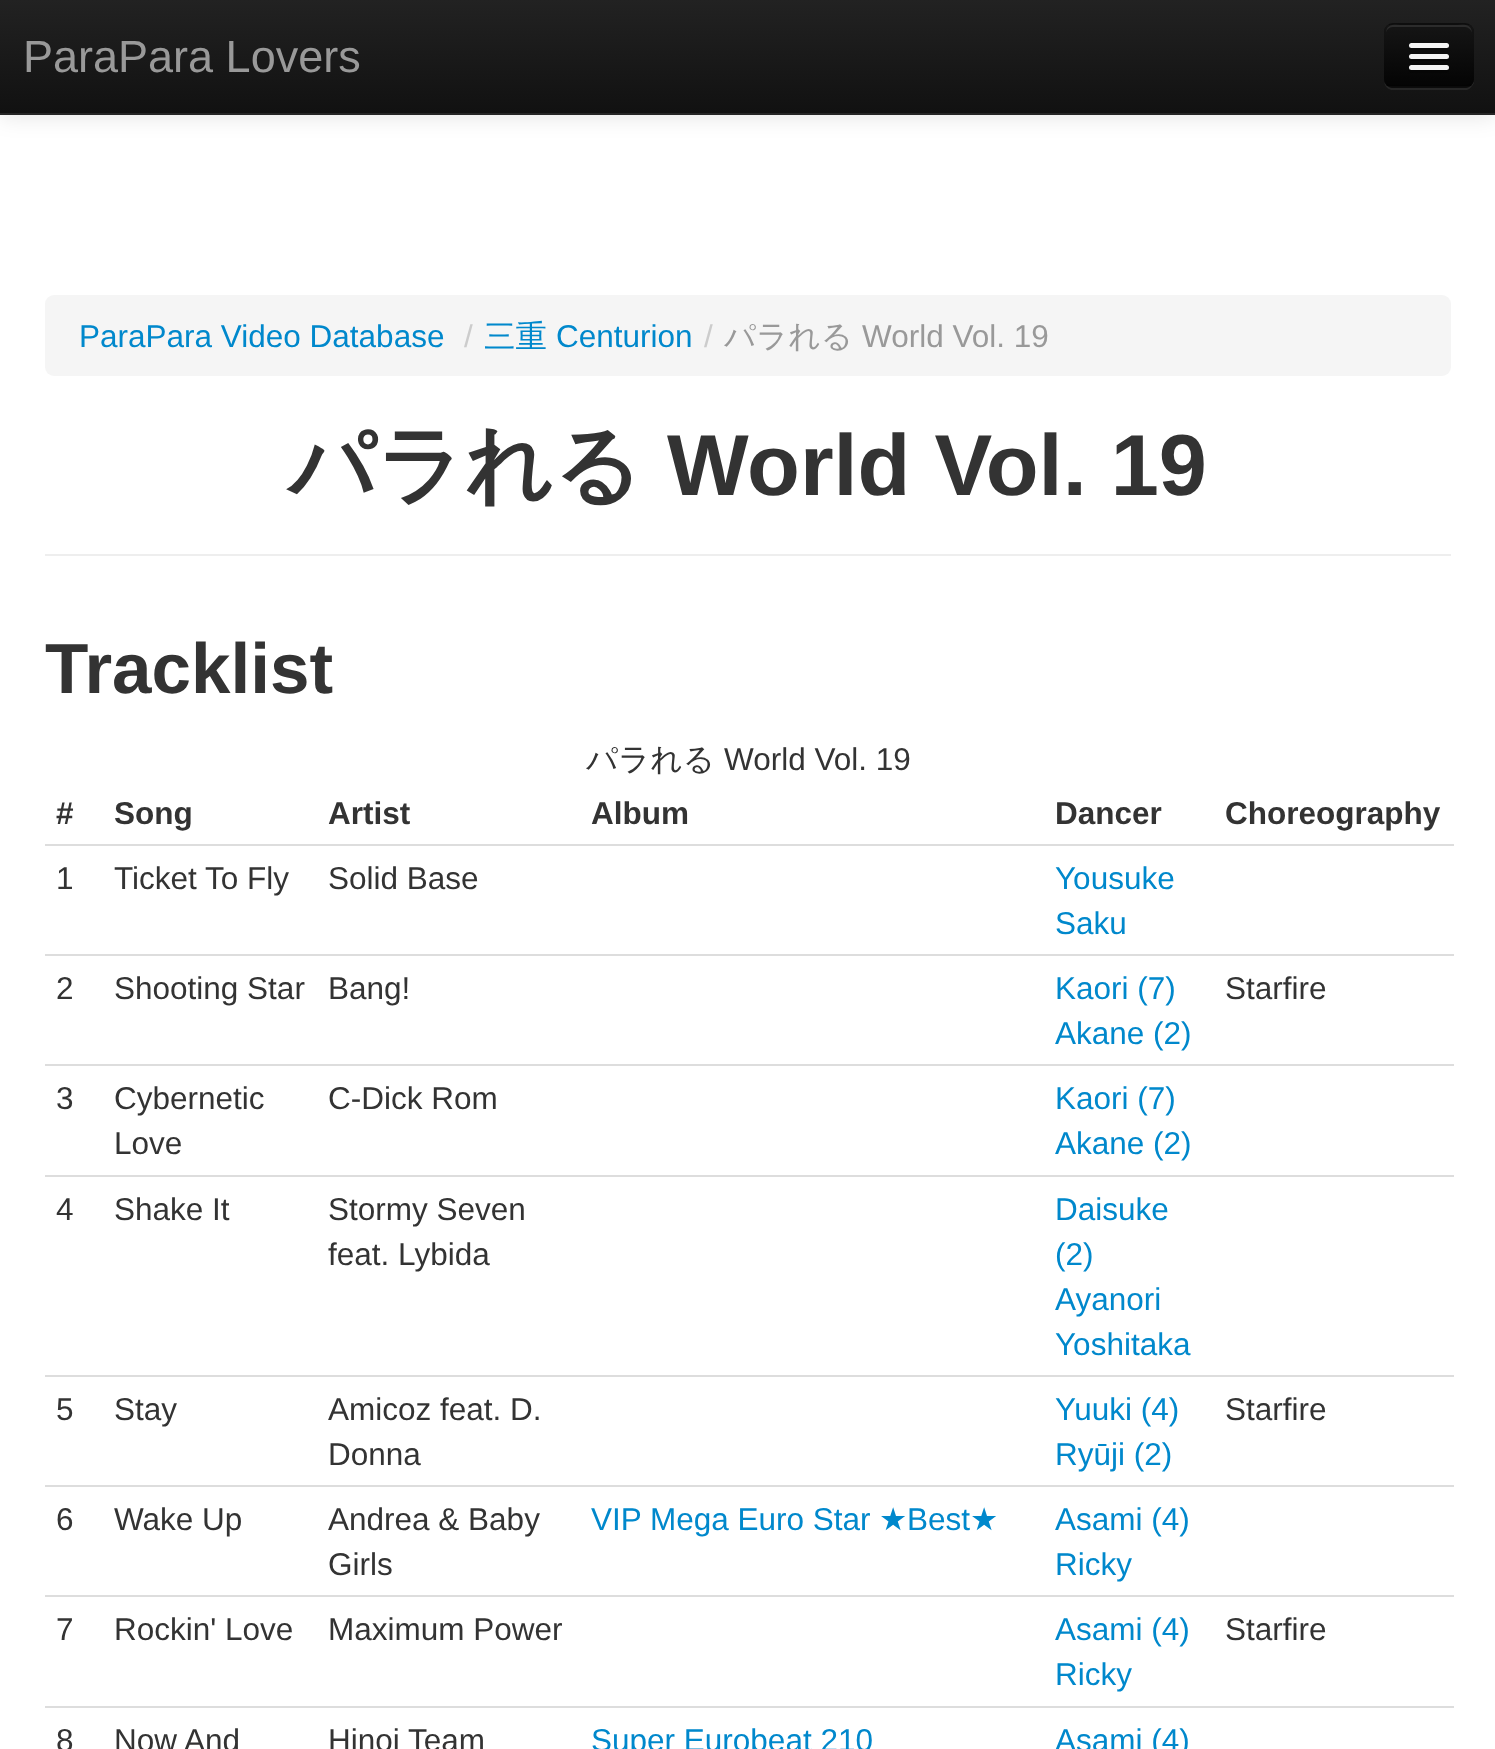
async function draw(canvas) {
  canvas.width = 1495;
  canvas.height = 1749;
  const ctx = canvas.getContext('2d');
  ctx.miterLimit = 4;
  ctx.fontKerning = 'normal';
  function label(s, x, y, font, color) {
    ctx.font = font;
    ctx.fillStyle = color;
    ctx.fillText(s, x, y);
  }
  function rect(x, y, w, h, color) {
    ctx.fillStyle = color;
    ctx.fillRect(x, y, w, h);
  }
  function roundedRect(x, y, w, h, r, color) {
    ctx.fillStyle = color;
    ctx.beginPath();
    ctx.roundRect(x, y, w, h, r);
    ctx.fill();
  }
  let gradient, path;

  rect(0, 0, 1495, 1749, '#fff');
  ctx.fillStyle = '#0000001a';
  ctx.filter = 'blur(11px)';
  ctx.beginPath();
  ctx.rect(0, 2, 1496, 115);
  ctx.fill();
  ctx.filter = 'none';
  gradient = ctx.createLinearGradient(748, 0, 748, 113);
  gradient.addColorStop(0, '#222');
  gradient.addColorStop(1, '#111');
  ctx.fillStyle = gradient;
  ctx.fillRect(0, 0, 1495, 113);
  rect(0, 113, 1495, 2, '#252525');
  label('ParaPara Lovers', 23, 72, '45px Liberation Sans', '#999');
  ctx.fillStyle = '#272727';
  path = new Path2D('M1384 81L1385 85C1386 87 1388 89 1391 90H1467C1469 89 1471 88 1472 86L1474 83V32V79C1474 84 1470 88 1465 88H1393C1389 88 1385 85 1384 81Z');
  ctx.fill(path);
  roundedRect(1384, 23, 90, 65, 9, '#0e0e0e');
  ctx.save();
  ctx.beginPath();
  ctx.roundRect(1384, 23, 90, 65, 9);
  ctx.clip();
  gradient = ctx.createLinearGradient(1429, 25, 1429, 86);
  gradient.addColorStop(0, '#151515');
  gradient.addColorStop(1, '#040404');
  ctx.fillStyle = gradient;
  ctx.fillRect(1384, 25, 90, 61);
  ctx.restore();
  ctx.fillStyle = '#2c2c2c';
  path = new Path2D('M1393 27H1465C1468 27 1472 30 1472 34C1472 22 1462 25 1453 25H1405C1396 25 1386 22 1386 34C1386 30 1389 27 1393 27Z');
  ctx.fill(path);
  path = new Path2D('M1470.5 84.5C1469 86 1467 86.5 1465 86.5H1393C1390.5 86.5 1388.5 86 1387 84.5');
  ctx.strokeStyle = '#00000040';
  ctx.lineWidth = 2.2;
  ctx.stroke(path);
  ctx.fillStyle = '#0b0b0b';
  path = new Path2D('M1409 47C1407 51 1416 50 1417 50H1441C1441 50 1451 51 1449 46L1447 47C1443 48 1410 48 1409 47Z');
  ctx.fill(path);
  roundedRect(1409, 43, 40, 5, 2.5, '#f5f5f5');
  ctx.fillStyle = '#080808';
  path = new Path2D('M1409 58C1408 62 1416 61 1417 61H1441C1442 61 1451 62 1449 57L1447 58C1443 59 1410 59 1409 58Z');
  ctx.fill(path);
  roundedRect(1409, 54, 40, 5, 2.5, '#f5f5f5');
  ctx.fillStyle = '#060606';
  path = new Path2D('M1409 69C1407 74 1417 73 1417 73H1441C1441 73 1452 74 1448 69L1447 70C1444 70 1411 70 1409 69Z');
  ctx.fill(path);
  roundedRect(1409, 65, 40, 5, 2.5, '#f5f5f5');
  roundedRect(45, 295, 1406, 81, 9, '#f5f5f5');
  label('ParaPara Video Database', 79, 347, '31.5px Liberation Sans', '#08c');
  label('/', 464, 347, '31.5px Liberation Sans', '#ccc');
  label('三重', 484, 347, '500 31.5px WenQuanYi Zen Hei', '#08c');
  label('Centurion', 556, 347, '31.5px Liberation Sans', '#08c');
  label('/', 704, 347, '31.5px Liberation Sans', '#ccc');
  label('パラれる', 724, 347, '500 31.5px WenQuanYi Zen Hei', '#999');
  label('World Vol. 19', 862, 347, '31.5px Liberation Sans', '#999');
  rect(45, 554, 1406, 2, '#eee');
  label('パラれる', 288, 495, 'bold 86.5px WenQuanYi Zen Hei', '#333');
  label('World Vol. 19', 667, 495, 'bold 86.5px Liberation Sans', '#333');
  label('Tracklist', 45, 693, 'bold 71px Liberation Sans', '#333');
  label('パラれる', 586, 770, '500 31.5px WenQuanYi Zen Hei', '#333');
  label('World Vol. 19', 724, 770, '31.5px Liberation Sans', '#333');
  label('#', 56, 824, 'bold 31.5px Liberation Sans', '#333');
  label('Song', 114, 824, 'bold 31.5px Liberation Sans', '#333');
  label('Artist', 328, 824, 'bold 31.5px Liberation Sans', '#333');
  label('Album', 591, 824, 'bold 31.5px Liberation Sans', '#333');
  label('Dancer', 1055, 824, 'bold 31.5px Liberation Sans', '#333');
  label('Choreography', 1225, 824, 'bold 31.5px Liberation Sans', '#333');
  rect(45, 844, 1409, 2, '#ddd');
  label('1', 56, 889, '31.5px Liberation Sans', '#333');
  label('Ticket To Fly', 114, 889, '31.5px Liberation Sans', '#333');
  label('Solid Base', 328, 889, '31.5px Liberation Sans', '#333');
  label('Yousuke', 1055, 889, '31.5px Liberation Sans', '#08c');
  label('Saku', 1055, 934, '31.5px Liberation Sans', '#08c');
  label('2', 56, 999, '31.5px Liberation Sans', '#333');
  label('Shooting Star', 114, 999, '31.5px Liberation Sans', '#333');
  label('Bang!', 328, 999, '31.5px Liberation Sans', '#333');
  label('Kaori (7)', 1055, 999, '31.5px Liberation Sans', '#08c');
  label('Akane (2)', 1055, 1044, '31.5px Liberation Sans', '#08c');
  rect(45, 954, 1409, 2, '#ddd');
  label('Starfire', 1225, 999, '31.5px Liberation Sans', '#333');
  rect(45, 1064, 1409, 2, '#ddd');
  label('3', 56, 1109, '31.5px Liberation Sans', '#333');
  label('Cybernetic', 114, 1109, '31.5px Liberation Sans', '#333');
  label('Love', 114, 1154, '31.5px Liberation Sans', '#333');
  label('C-Dick Rom', 328, 1109, '31.5px Liberation Sans', '#333');
  label('Kaori (7)', 1055, 1109, '31.5px Liberation Sans', '#08c');
  label('Akane (2)', 1055, 1154, '31.5px Liberation Sans', '#08c');
  rect(45, 1175, 1409, 2, '#ddd');
  label('4', 56, 1220, '31.5px Liberation Sans', '#333');
  label('Shake It', 114, 1220, '31.5px Liberation Sans', '#333');
  label('Stormy Seven', 328, 1220, '31.5px Liberation Sans', '#333');
  label('feat. Lybida', 328, 1265, '31.5px Liberation Sans', '#333');
  label('Daisuke', 1055, 1220, '31.5px Liberation Sans', '#08c');
  label('(2)', 1055, 1265, '31.5px Liberation Sans', '#08c');
  label('Ayanori', 1055, 1310, '31.5px Liberation Sans', '#08c');
  label('Yoshitaka', 1055, 1355, '31.5px Liberation Sans', '#08c');
  label('5', 56, 1420, '31.5px Liberation Sans', '#333');
  label('Stay', 114, 1420, '31.5px Liberation Sans', '#333');
  label('Amicoz feat. D.', 328, 1420, '31.5px Liberation Sans', '#333');
  label('Donna', 328, 1465, '31.5px Liberation Sans', '#333');
  label('Yuuki (4)', 1055, 1420, '31.5px Liberation Sans', '#08c');
  label('Ryūji (2)', 1055, 1465, '31.5px Liberation Sans', '#08c');
  rect(45, 1375, 1409, 2, '#ddd');
  label('Starfire', 1225, 1420, '31.5px Liberation Sans', '#333');
  rect(45, 1485, 1409, 2, '#ddd');
  label('6', 56, 1530, '31.5px Liberation Sans', '#333');
  label('Wake Up', 114, 1530, '31.5px Liberation Sans', '#333');
  label('Andrea & Baby', 328, 1530, '31.5px Liberation Sans', '#333');
  label('Girls', 328, 1575, '31.5px Liberation Sans', '#333');
  label('VIP Mega Euro Star', 591, 1530, '31.5px Liberation Sans', '#08c');
  label('★', 879, 1530, '31.5px DejaVu Sans', '#08c');
  label('Best', 907, 1530, '31.5px Liberation Sans', '#08c');
  label('★', 970, 1530, '31.5px DejaVu Sans', '#08c');
  label('Asami (4)', 1055, 1530, '31.5px Liberation Sans', '#08c');
  label('Ricky', 1055, 1575, '31.5px Liberation Sans', '#08c');
  label('7', 56, 1640, '31.5px Liberation Sans', '#333');
  label('Rockin\' Love', 114, 1640, '31.5px Liberation Sans', '#333');
  label('Maximum Power', 328, 1640, '31.5px Liberation Sans', '#333');
  label('Asami (4)', 1055, 1640, '31.5px Liberation Sans', '#08c');
  label('Ricky', 1055, 1685, '31.5px Liberation Sans', '#08c');
  rect(45, 1595, 1409, 2, '#ddd');
  label('Starfire', 1225, 1640, '31.5px Liberation Sans', '#333');
  rect(45, 1706, 1409, 2, '#ddd');
  label('8', 56, 1751, '31.5px Liberation Sans', '#333');
  label('Now And', 114, 1751, '31.5px Liberation Sans', '#333');
  label('Hinoi Team', 328, 1751, '31.5px Liberation Sans', '#333');
  label('Super Eurobeat 210', 591, 1751, '31.5px Liberation Sans', '#08c');
  label('Asami (4)', 1055, 1751, '31.5px Liberation Sans', '#08c');
}

draw(document.querySelector('canvas'));
